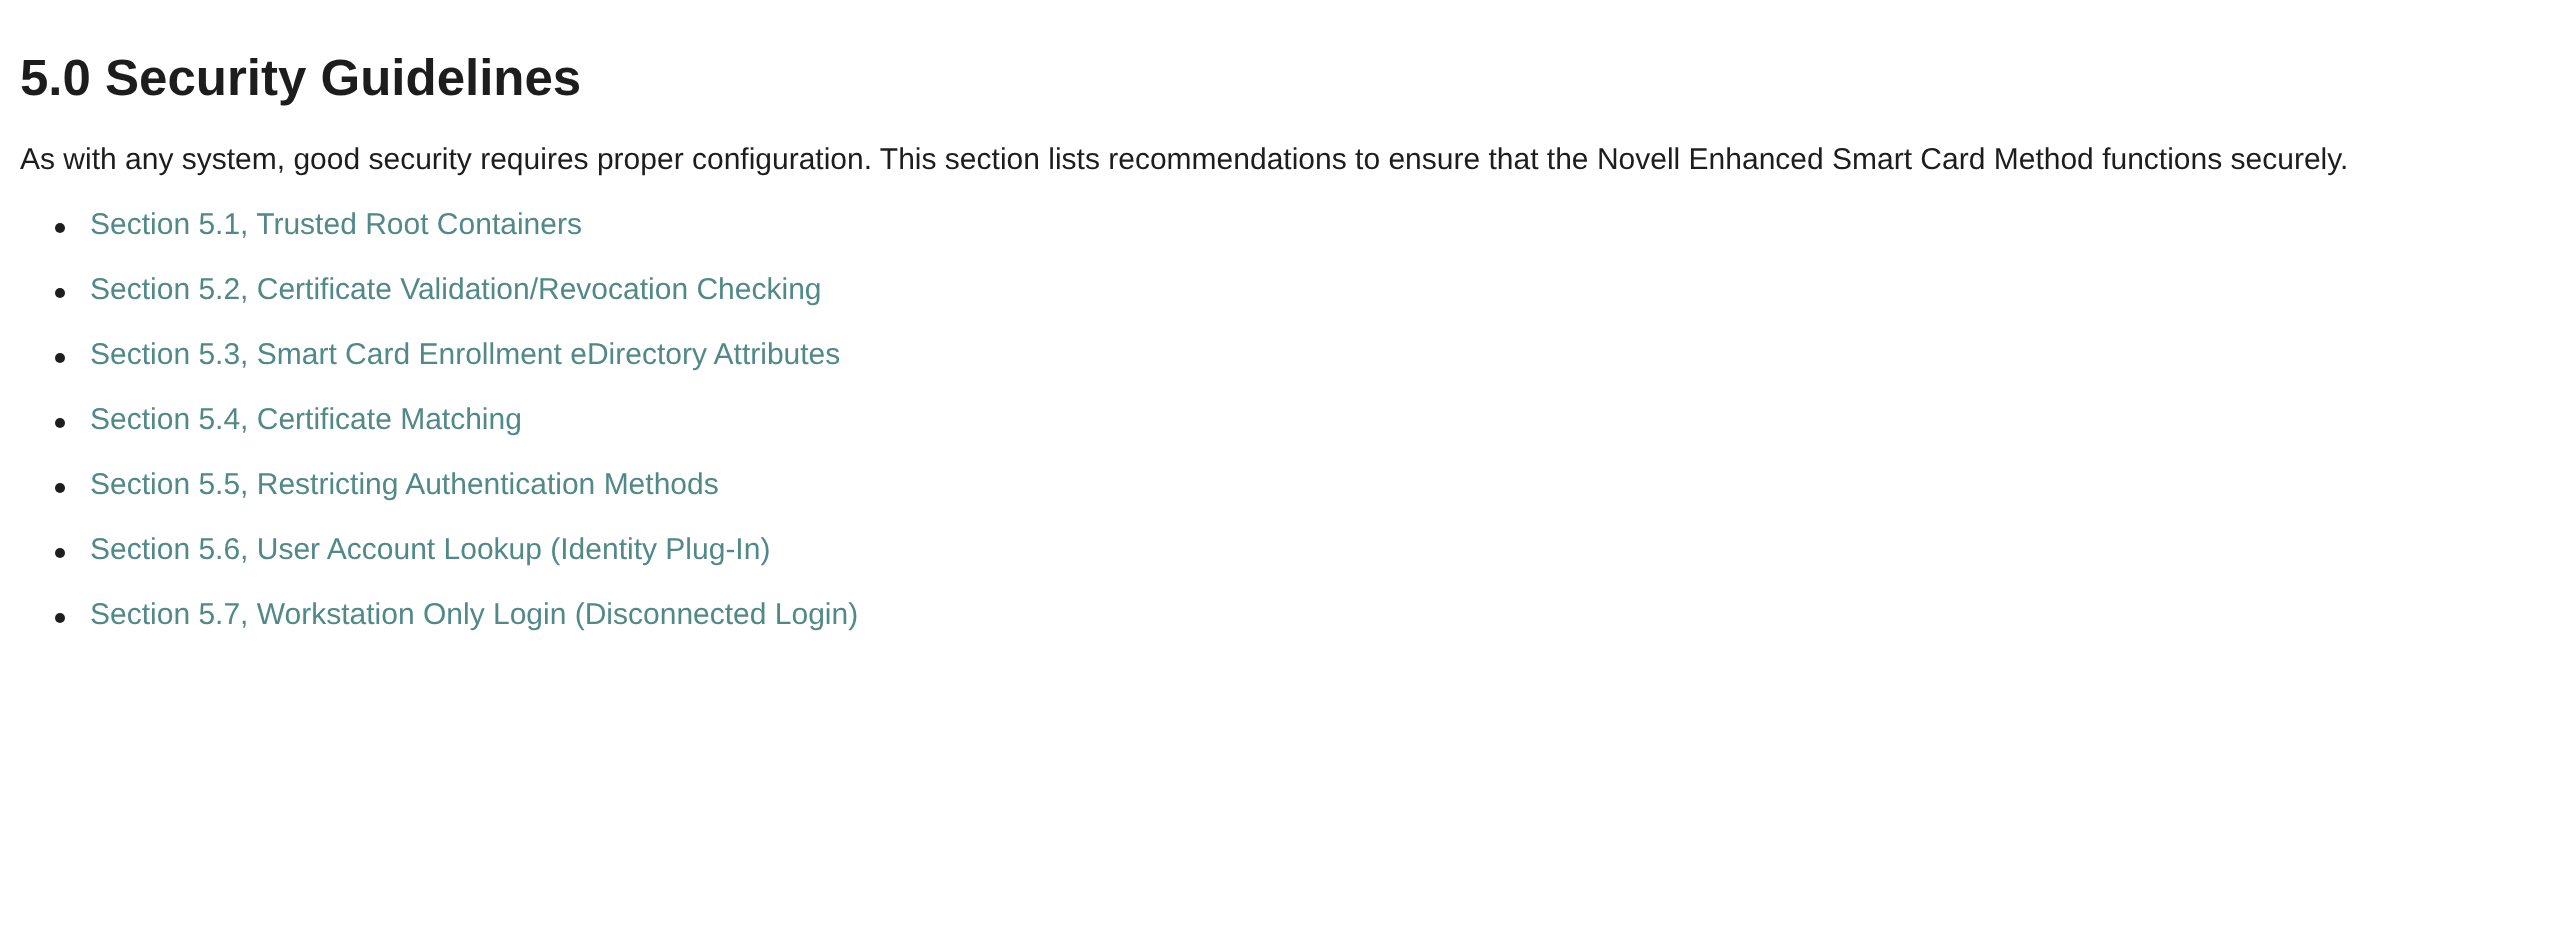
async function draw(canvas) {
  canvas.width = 2568;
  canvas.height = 937;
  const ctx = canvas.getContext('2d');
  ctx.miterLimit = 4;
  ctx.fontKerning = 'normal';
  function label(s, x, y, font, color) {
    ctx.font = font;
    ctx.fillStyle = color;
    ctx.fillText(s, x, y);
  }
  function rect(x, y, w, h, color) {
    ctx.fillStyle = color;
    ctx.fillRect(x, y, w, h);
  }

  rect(0, 0, 2568, 937, '#fff');
  label('5.0 Security Guidelines', 20, 95, 'bold 51px Liberation Sans', '#1d1d1d');
  label('As with any system, good security requires proper configuration. This section lists recommendations to ensure that the Novell Enhanced Smart Card Method functions securely.', 20, 169, '30px Liberation Sans', '#1d1d1d');
  ctx.fillStyle = '#1e1e1e';
  ctx.beginPath();
  ctx.arc(60, 228, 5, 0, 2 * Math.PI);
  ctx.fill();
  label('Section 5.1, Trusted Root Containers', 90, 234, '30px Liberation Sans', '#518988');
  ctx.fillStyle = '#1e1e1e';
  ctx.beginPath();
  ctx.arc(60, 293, 5, 0, 2 * Math.PI);
  ctx.fill();
  label('Section 5.2, Certificate Validation/Revocation Checking', 90, 299, '30px Liberation Sans', '#518988');
  ctx.fillStyle = '#1e1e1e';
  ctx.beginPath();
  ctx.arc(60, 358, 5, 0, 2 * Math.PI);
  ctx.fill();
  label('Section 5.3, Smart Card Enrollment eDirectory Attributes', 90, 364, '30px Liberation Sans', '#518988');
  ctx.fillStyle = '#1e1e1e';
  ctx.beginPath();
  ctx.arc(60, 423, 5, 0, 2 * Math.PI);
  ctx.fill();
  label('Section 5.4, Certificate Matching', 90, 429, '30px Liberation Sans', '#518988');
  ctx.fillStyle = '#1e1e1e';
  ctx.beginPath();
  ctx.arc(60, 488, 5, 0, 2 * Math.PI);
  ctx.fill();
  label('Section 5.5, Restricting Authentication Methods', 90, 494, '30px Liberation Sans', '#518988');
  ctx.fillStyle = '#1e1e1e';
  ctx.beginPath();
  ctx.arc(60, 553, 5, 0, 2 * Math.PI);
  ctx.fill();
  label('Section 5.6, User Account Lookup (Identity Plug-In)', 90, 559, '30px Liberation Sans', '#518988');
  ctx.fillStyle = '#1e1e1e';
  ctx.beginPath();
  ctx.arc(60, 618, 5, 0, 2 * Math.PI);
  ctx.fill();
  label('Section 5.7, Workstation Only Login (Disconnected Login)', 90, 624, '30px Liberation Sans', '#518988');
}

draw(document.querySelector('canvas'));
